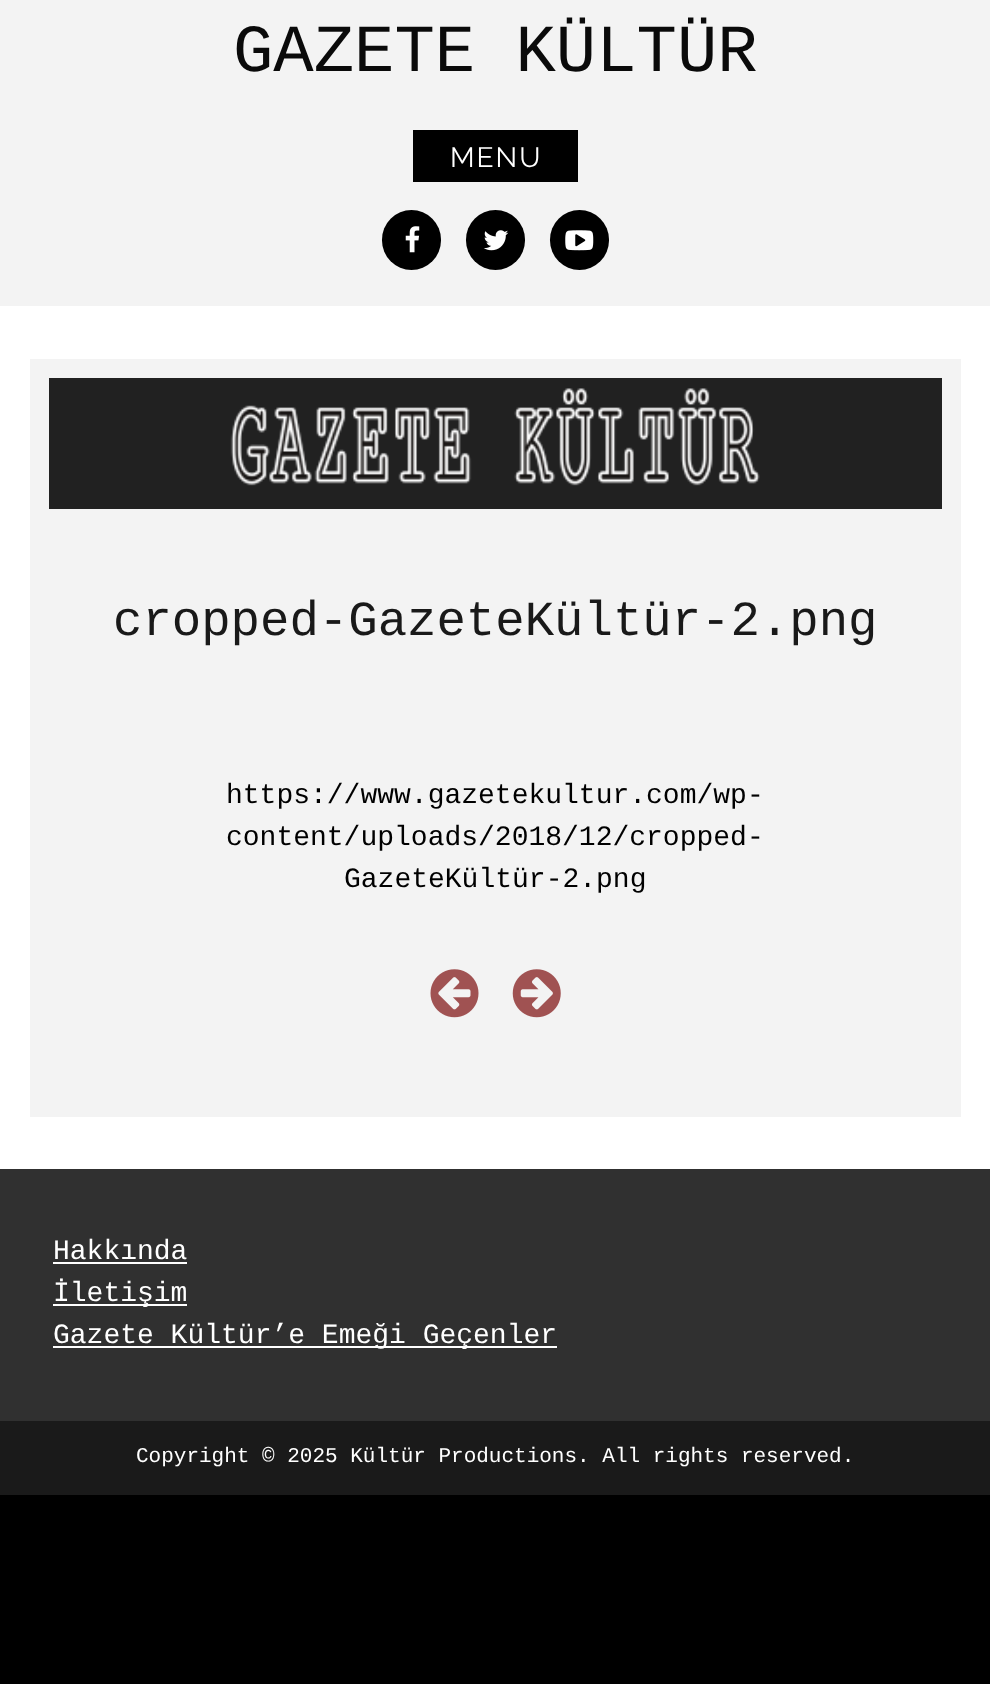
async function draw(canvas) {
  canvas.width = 990;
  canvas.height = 1684;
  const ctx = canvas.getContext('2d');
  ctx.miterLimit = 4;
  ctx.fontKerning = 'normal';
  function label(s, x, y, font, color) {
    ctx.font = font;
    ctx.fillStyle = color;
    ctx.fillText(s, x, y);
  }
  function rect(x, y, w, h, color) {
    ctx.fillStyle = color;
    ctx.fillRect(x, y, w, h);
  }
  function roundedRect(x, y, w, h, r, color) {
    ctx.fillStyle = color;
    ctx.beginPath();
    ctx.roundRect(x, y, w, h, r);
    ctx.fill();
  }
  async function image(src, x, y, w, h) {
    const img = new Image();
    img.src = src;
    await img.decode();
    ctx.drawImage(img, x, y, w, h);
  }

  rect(0, 0, 990, 1684, '#000');
  rect(0, 306, 990, 863, '#fff');
  rect(0, 0, 990, 306, '#f3f3f3');
  label('GAZETE KÜLTÜR', 233, 71, '67.25px Liberation Mono', '#0a0a0a');
  rect(413, 130, 165, 52, '#000');
  ctx.letterSpacing = '2px';
  label('MENU', 450, 167, '28px Raleway', '#fff');
  roundedRect(382, 210, 59, 60, 29.5, '#000');
  await image('assets/img1.png', 405, 226, 15, 27);
  roundedRect(466, 210, 59, 60, 29.5, '#000');
  await image('assets/img2.png', 483, 230, 26, 21);
  roundedRect(550, 210, 59, 60, 29.5, '#000');
  await image('assets/img3.png', 565, 230, 29, 21);
  rect(30, 359, 931, 758, '#f3f3f3');
  rect(49, 378, 893, 131, '#212121');
  await image('assets/img4.png', 230, 388, 530, 98);
  ctx.letterSpacing = '0px';
  label('cropped-GazeteKültür-2.png', 113, 635, '49px Liberation Mono', '#191919');
  label('https://www.gazetekultur.com/wp-', 226, 803, '28px Liberation Mono', '#000');
  label('content/uploads/2018/12/cropped-', 226, 845, '28px Liberation Mono', '#000');
  label('GazeteKültür-2.png', 344, 887, '28px Liberation Mono', '#000');
  await image('assets/img5.png', 430, 969, 49, 49);
  await image('assets/img6.png', 512, 969, 49, 49);
  rect(0, 1169, 990, 252, '#303030');
  label('Hakkında', 53, 1259, '28px Liberation Mono', '#fff');
  rect(53, 1262, 134, 2, '#fff');
  rect(53, 1304, 134, 2, '#fff');
  label('İletişim', 53, 1301, '28px Liberation Mono', '#fff');
  rect(53, 1346, 504, 2, '#fff');
  label('Gazete Kültür’e Emeği Geçenler', 53, 1343, '28px Liberation Mono', '#fff');
  rect(0, 1421, 990, 74, '#1a1a1a');
  label('Copyright © 2025 Kültür Productions. All rights reserved.', 136, 1462, '21px Liberation Mono', '#fff');
}

draw(document.querySelector('canvas'));
